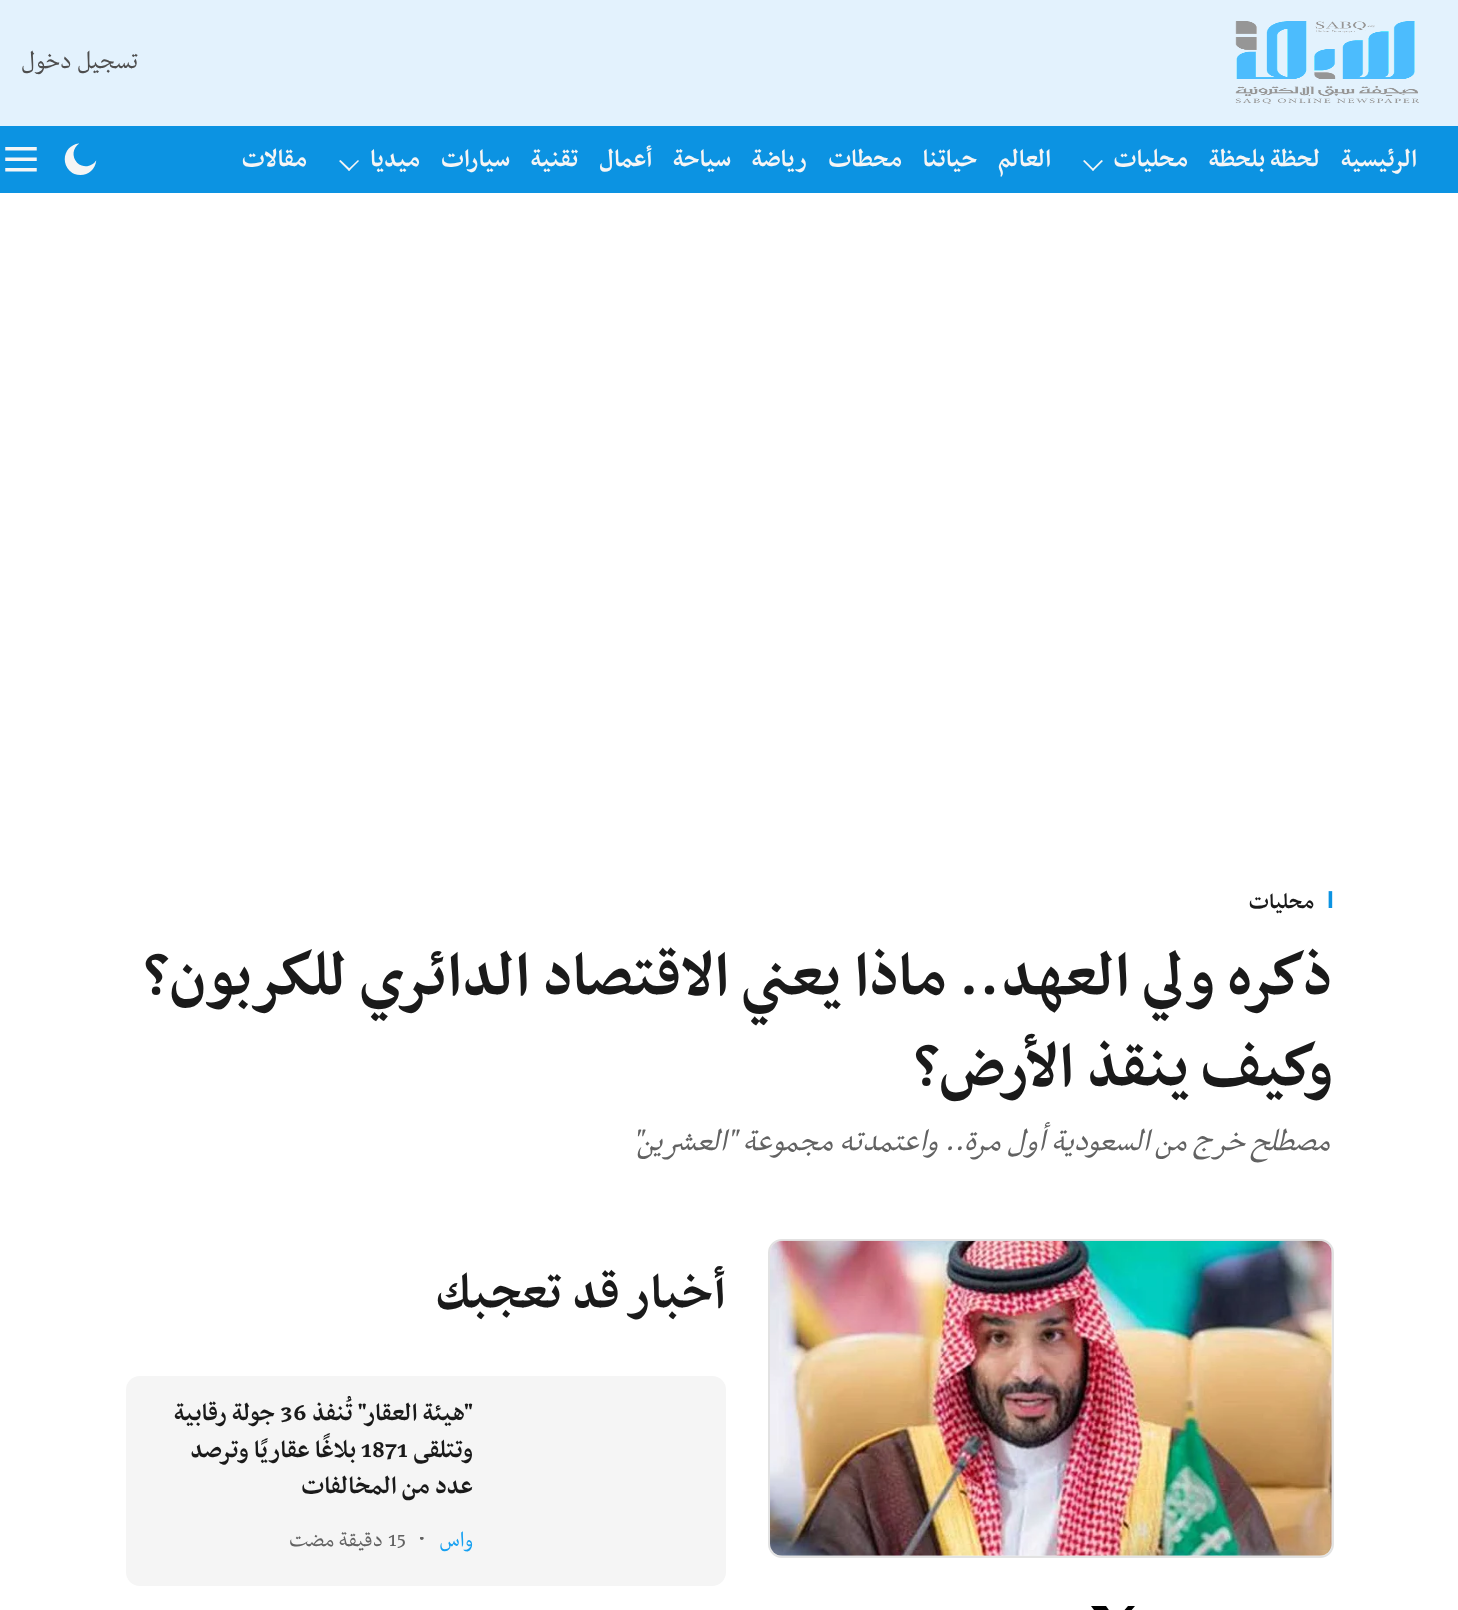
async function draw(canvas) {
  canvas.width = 1458;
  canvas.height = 1610;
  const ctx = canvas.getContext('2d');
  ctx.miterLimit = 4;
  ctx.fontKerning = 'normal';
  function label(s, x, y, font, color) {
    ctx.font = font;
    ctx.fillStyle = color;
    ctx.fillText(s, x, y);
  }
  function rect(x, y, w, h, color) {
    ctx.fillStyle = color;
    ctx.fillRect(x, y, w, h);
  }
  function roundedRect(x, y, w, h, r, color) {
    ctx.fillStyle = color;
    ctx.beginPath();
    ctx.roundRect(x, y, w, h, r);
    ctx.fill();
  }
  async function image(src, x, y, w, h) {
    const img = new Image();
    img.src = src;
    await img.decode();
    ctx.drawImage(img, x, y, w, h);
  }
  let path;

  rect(0, 0, 1458, 1610, '#fff');
  rect(0, 0, 1458, 126, '#e3f2fd');
  await image('assets/img1.png', 1235, 21, 184, 83);
  ctx.direction = 'rtl';
  label('تسجيل دخول', 138, 68, '28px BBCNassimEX', '#4e4e4e');
  rect(0, 126, 1458, 67, '#0c93e2');
  label('الرئيسية', 1417, 166, 'bold 28px BBCNassimEX', '#f5f5f5');
  label('لحظة بلحظة', 1320, 166, 'bold 28px BBCNassimEX', '#f5f5f5');
  label('محليات', 1188, 166, 'bold 28px BBCNassimEX', '#f5f5f5');
  path = new Path2D('M1101.5 160L1103 161L1093 171L1092 169.5Z');
  ctx.fill(path);
  path = new Path2D('M1084.5 160L1094 169.5L1093 171L1083 161Z');
  ctx.fill(path);
  label('العالم', 1051, 166, 'bold 28px BBCNassimEX', '#f5f5f5');
  label('حياتنا', 977, 166, 'bold 28px BBCNassimEX', '#f5f5f5');
  label('محطات', 902, 166, 'bold 28px BBCNassimEX', '#f5f5f5');
  label('رياضة', 807, 166, 'bold 28px BBCNassimEX', '#f5f5f5');
  label('سياحة', 731, 166, 'bold 28px BBCNassimEX', '#f5f5f5');
  label('أعمال', 652, 166, 'bold 28px BBCNassimEX', '#f5f5f5');
  label('تقنية', 578, 166, 'bold 28px BBCNassimEX', '#f5f5f5');
  label('سيارات', 510, 166, 'bold 28px BBCNassimEX', '#f5f5f5');
  label('ميديا', 420, 166, 'bold 28px BBCNassimEX', '#f5f5f5');
  path = new Path2D('M358 160L359 161L349 171L348 169.5Z');
  ctx.fill(path);
  path = new Path2D('M340.5 160L350.5 169.5L349 171L339 161Z');
  ctx.fill(path);
  label('مقالات', 307, 166, 'bold 28px BBCNassimEX', '#f5f5f5');
  await image('assets/img2.png', 64, 143, 33, 32);
  await image('assets/img3.png', 5, 147, 32, 25);
  ctx.direction = 'ltr';
  label('I', 1327, 908, 'bold 24.5px Liberation Sans', '#0c93e2');
  ctx.direction = 'rtl';
  label('محليات', 1314, 908, 'bold 24.5px BBCNassimEX', '#1a1a1a');
  label('ذكره ولي العهد.. ماذا يعني الاقتصاد الدائري للكربون؟', 1333, 994, 'bold 70px BBCNassimEX', '#1a1a1a');
  label('وكيف ينقذ الأرض؟', 1333, 1085, 'bold 70px BBCNassimEX', '#1a1a1a');
  label('مصطلح خرج من السعودية أول مرة.. واعتمدته مجموعة "العشرين"', 1330, 1150, 'italic 35px BBCNassimEX', '#626262');
  ctx.fillStyle = '#f0f0f0';
  ctx.beginPath();
  ctx.roundRect(769, 1240, 564, 317, 13);
  ctx.fill();
  ctx.strokeStyle = '#e2e2e2';
  ctx.lineWidth = 2;
  ctx.stroke();
  await image('assets/img4.png', 770, 1240, 562, 316);
  label('أخبار قد تعجبك', 725, 1307, 'bold 56px BBCNassimEX', '#1a1a1a');
  roundedRect(126, 1376, 600, 210, 14, '#f5f5f5');
  label('"هيئة العقار" تُنفذ', 473, 1420, 'bold 28px BBCNassimEX', '#1a1a1a');
  ctx.direction = 'ltr';
  label('36', 280, 1420, 'bold 28px BBCNassimEX', '#1a1a1a');
  ctx.direction = 'rtl';
  label('جولة رقابية', 275, 1420, 'bold 28px BBCNassimEX', '#1a1a1a');
  label('وتتلقى', 473, 1457, 'bold 28px BBCNassimEX', '#1a1a1a');
  ctx.direction = 'ltr';
  label('1871', 361, 1457, 'bold 28px BBCNassimEX', '#1a1a1a');
  ctx.direction = 'rtl';
  label('بلاغًا عقاريًا وترصد', 356, 1457, 'bold 28px BBCNassimEX', '#1a1a1a');
  label('عدد من المخالفات', 473, 1493, 'bold 28px BBCNassimEX', '#1a1a1a');
  label('واس', 473, 1546, '24.5px BBCNassimEX', '#16a0f1');
  ctx.save();
  ctx.beginPath();
  ctx.rect(420, 1537, 5, 5);
  ctx.clip();
  ctx.fillStyle = '#626262';
  ctx.beginPath();
  ctx.arc(421.8, 1538.2, 1.8, 0, 2 * Math.PI);
  ctx.fill();
  ctx.restore();
  ctx.direction = 'ltr';
  label('15', 388, 1546, '24.5px BBCNassimEX', '#626262');
  ctx.direction = 'rtl';
  label('دقيقة مضت', 383, 1546, '24.5px BBCNassimEX', '#626262');
  ctx.fillStyle = '#000';
  path = new Path2D('M1128 1606H1135L1120 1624L1138 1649H1124L1112 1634L1099 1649H1092L1109 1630L1091 1606H1106L1116 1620ZM1126 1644H1130L1104 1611H1100Z');
  ctx.fill(path);
}

draw(document.querySelector('canvas'));
